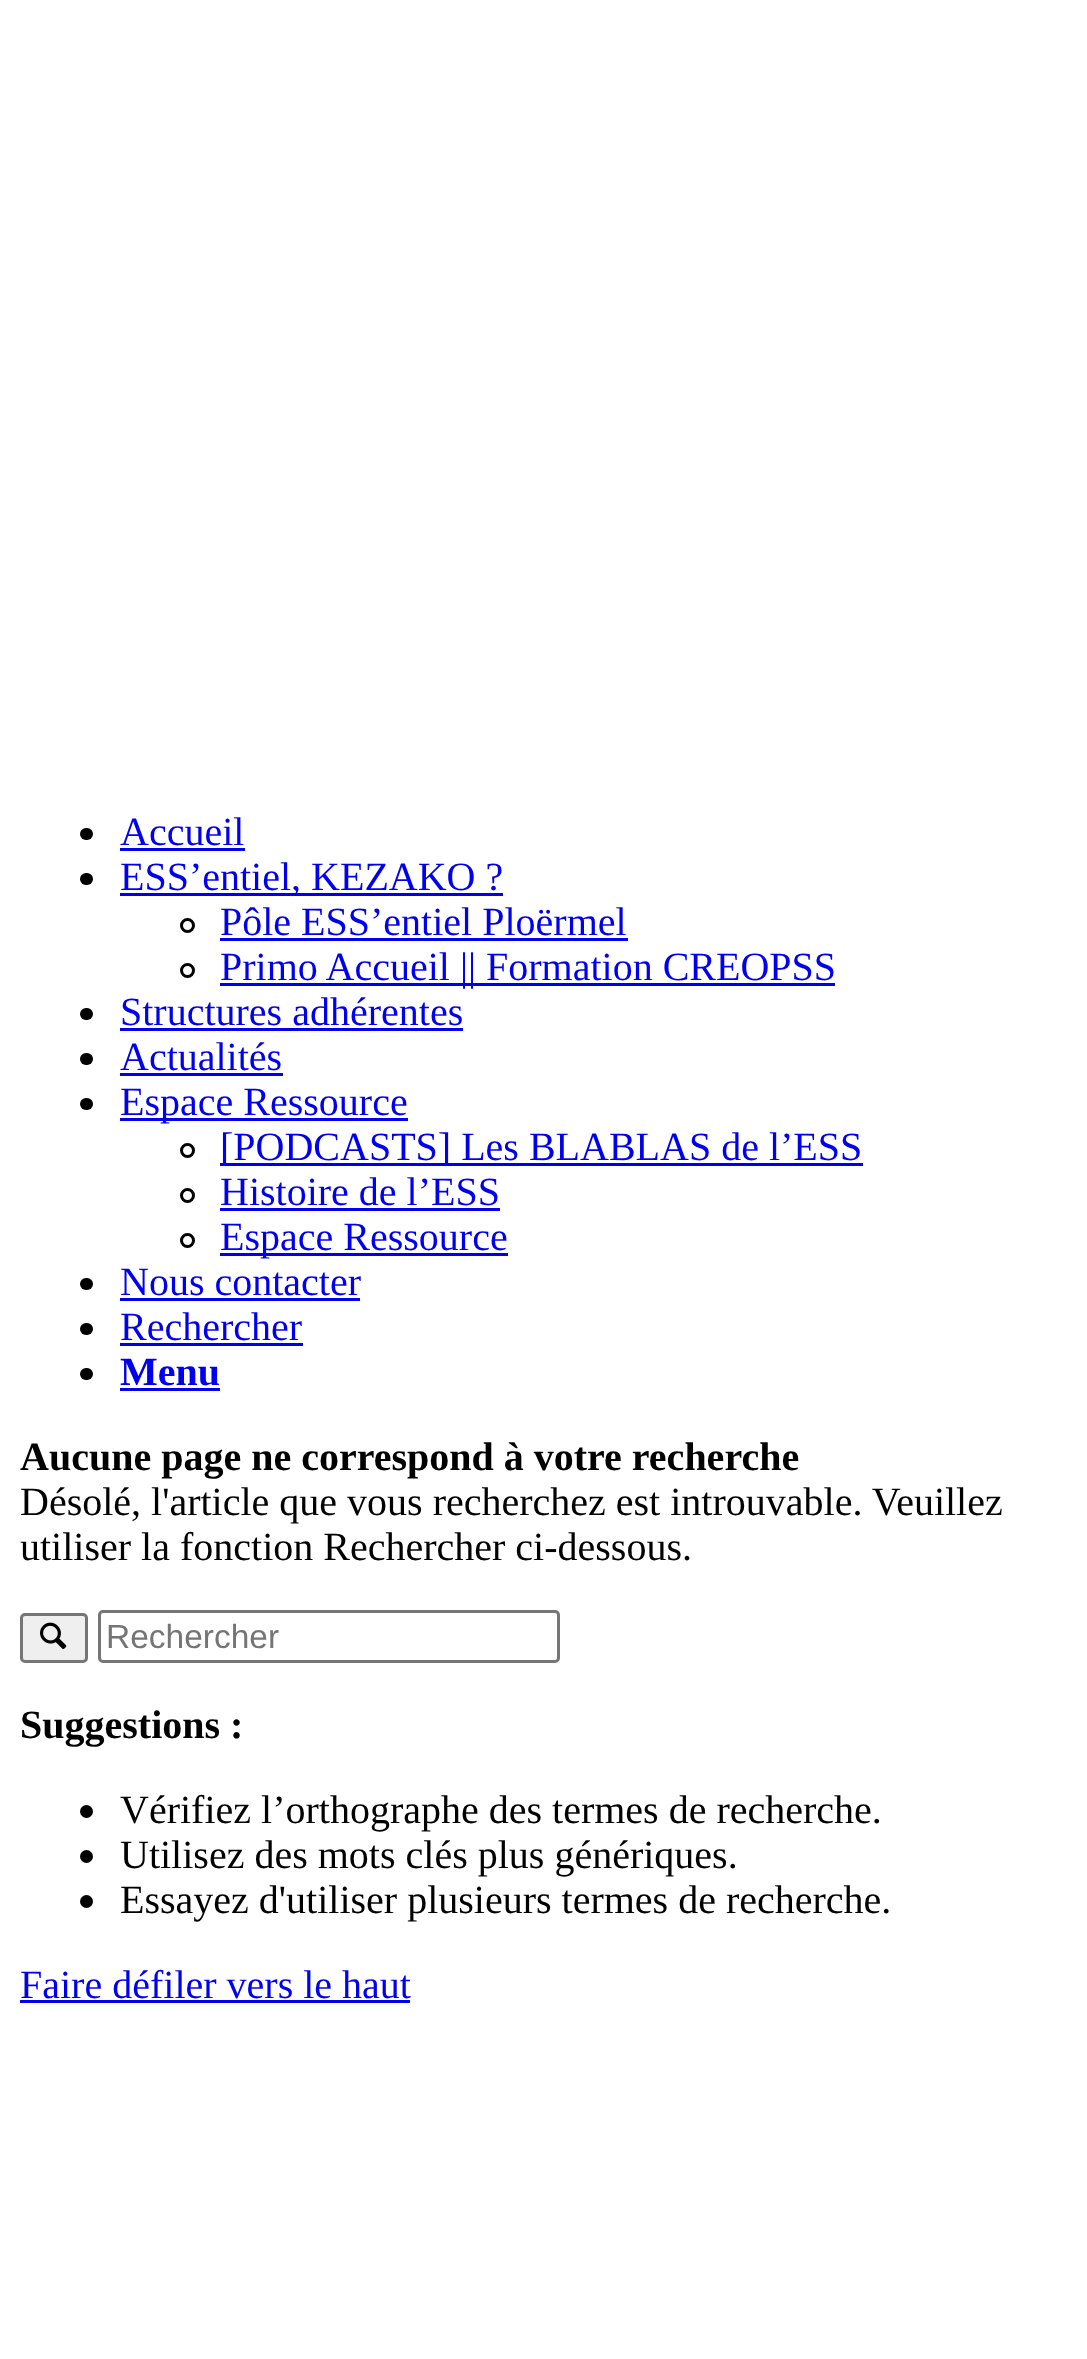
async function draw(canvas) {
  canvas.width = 1087;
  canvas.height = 2359;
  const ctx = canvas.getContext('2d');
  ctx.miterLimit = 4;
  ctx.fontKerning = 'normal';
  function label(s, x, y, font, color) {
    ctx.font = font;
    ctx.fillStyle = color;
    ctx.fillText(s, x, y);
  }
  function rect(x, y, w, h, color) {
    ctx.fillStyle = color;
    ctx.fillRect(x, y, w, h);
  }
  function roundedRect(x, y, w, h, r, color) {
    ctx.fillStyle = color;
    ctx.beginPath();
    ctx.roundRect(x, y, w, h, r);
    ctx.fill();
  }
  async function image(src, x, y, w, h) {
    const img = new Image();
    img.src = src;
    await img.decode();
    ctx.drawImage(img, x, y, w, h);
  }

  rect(0, 0, 1087, 2359, '#fff');
  roundedRect(80, 828, 13, 12, 6, '#000');
  label('Accueil', 120, 845, '40px Liberation Serif', '#00e');
  rect(120, 848, 125, 3, '#00e');
  roundedRect(80, 873, 13, 12, 6, '#000');
  rect(120, 893, 383, 3, '#00e');
  label('ESS’entiel, KEZAKO ?', 120, 890, '40px Liberation Serif', '#00e');
  ctx.beginPath();
  ctx.arc(187.5, 925.5, 6, 0, 2 * Math.PI);
  ctx.strokeStyle = '#000';
  ctx.lineWidth = 3;
  ctx.stroke();
  label('Pôle ESS’entiel Ploërmel', 220, 935, '40px Liberation Serif', '#00e');
  rect(220, 938, 408, 3, '#00e');
  ctx.beginPath();
  ctx.arc(187.5, 970.5, 6, 0, 2 * Math.PI);
  ctx.stroke();
  rect(220, 983, 615, 3, '#00e');
  label('Primo Accueil || Formation CREOPSS', 220, 980, '40px Liberation Serif', '#00e');
  roundedRect(80, 1008, 13, 12, 6, '#000');
  label('Structures adhérentes', 120, 1025, '40px Liberation Serif', '#00e');
  rect(120, 1028, 343, 3, '#00e');
  roundedRect(80, 1053, 13, 12, 6, '#000');
  label('Actualités', 120, 1070, '40px Liberation Serif', '#00e');
  rect(120, 1073, 163, 3, '#00e');
  roundedRect(80, 1098, 13, 12, 6, '#000');
  rect(120, 1118, 288, 3, '#00e');
  label('Espace Ressource', 120, 1115, '40px Liberation Serif', '#00e');
  ctx.beginPath();
  ctx.arc(187.5, 1150.5, 6, 0, 2 * Math.PI);
  ctx.stroke();
  rect(220, 1163, 643, 3, '#00e');
  label('[PODCASTS] Les BLABLAS de l’ESS', 220, 1160, '40px Liberation Serif', '#00e');
  ctx.beginPath();
  ctx.arc(187.5, 1195.5, 6, 0, 2 * Math.PI);
  ctx.stroke();
  label('Histoire de l’ESS', 220, 1205, '40px Liberation Serif', '#00e');
  rect(220, 1208, 280, 3, '#00e');
  ctx.beginPath();
  ctx.arc(187.5, 1240.5, 6, 0, 2 * Math.PI);
  ctx.stroke();
  rect(220, 1253, 288, 3, '#00e');
  label('Espace Ressource', 220, 1250, '40px Liberation Serif', '#00e');
  roundedRect(80, 1278, 13, 12, 6, '#000');
  label('Nous contacter', 120, 1295, '40px Liberation Serif', '#00e');
  rect(120, 1298, 240, 3, '#00e');
  roundedRect(80, 1323, 13, 12, 6, '#000');
  label('Rechercher', 120, 1340, '40px Liberation Serif', '#00e');
  rect(120, 1343, 183, 3, '#00e');
  roundedRect(80, 1368, 13, 12, 6, '#000');
  label('Menu', 120, 1385, 'bold 40px Liberation Serif', '#00e');
  rect(120, 1388, 100, 3, '#00e');
  label('Aucune page ne correspond à votre recherche', 20, 1470, 'bold 40px Liberation Serif', '#000');
  label('Désolé, l\'article que vous recherchez est introuvable. Veuillez', 20, 1515, '40px Liberation Serif', '#000');
  label('utiliser la fonction Rechercher ci-dessous.', 20, 1560, '40px Liberation Serif', '#000');
  ctx.fillStyle = '#efefef';
  ctx.beginPath();
  ctx.roundRect(21.5, 1614.5, 65, 47, 3.5);
  ctx.fill();
  ctx.strokeStyle = '#767676';
  ctx.stroke();
  await image('assets/img1.png', 40, 1622, 27, 27);
  ctx.beginPath();
  ctx.roundRect(99.5, 1611.5, 459, 50, 3.5);
  ctx.stroke();
  label('Rechercher', 106, 1648, '33.5px Liberation Sans', '#757575');
  label('Suggestions :', 20, 1738, 'bold 40px Liberation Serif', '#000');
  ctx.beginPath();
  ctx.arc(86.5, 1811.5, 6.5, 0, 2 * Math.PI);
  ctx.fill();
  label('Vérifiez l’orthographe des termes de recherche.', 120, 1823, '40px Liberation Serif', '#000');
  ctx.beginPath();
  ctx.arc(86.5, 1856.5, 6.5, 0, 2 * Math.PI);
  ctx.fill();
  label('Utilisez des mots clés plus génériques.', 120, 1868, '40px Liberation Serif', '#000');
  ctx.beginPath();
  ctx.arc(86.5, 1901.5, 6.5, 0, 2 * Math.PI);
  ctx.fill();
  label('Essayez d\'utiliser plusieurs termes de recherche.', 120, 1913, '40px Liberation Serif', '#000');
  label('Faire défiler vers le haut', 20, 1998, '40px Liberation Serif', '#00e');
  rect(20, 2000, 390, 3, '#00e');
}

draw(document.querySelector('canvas'));
